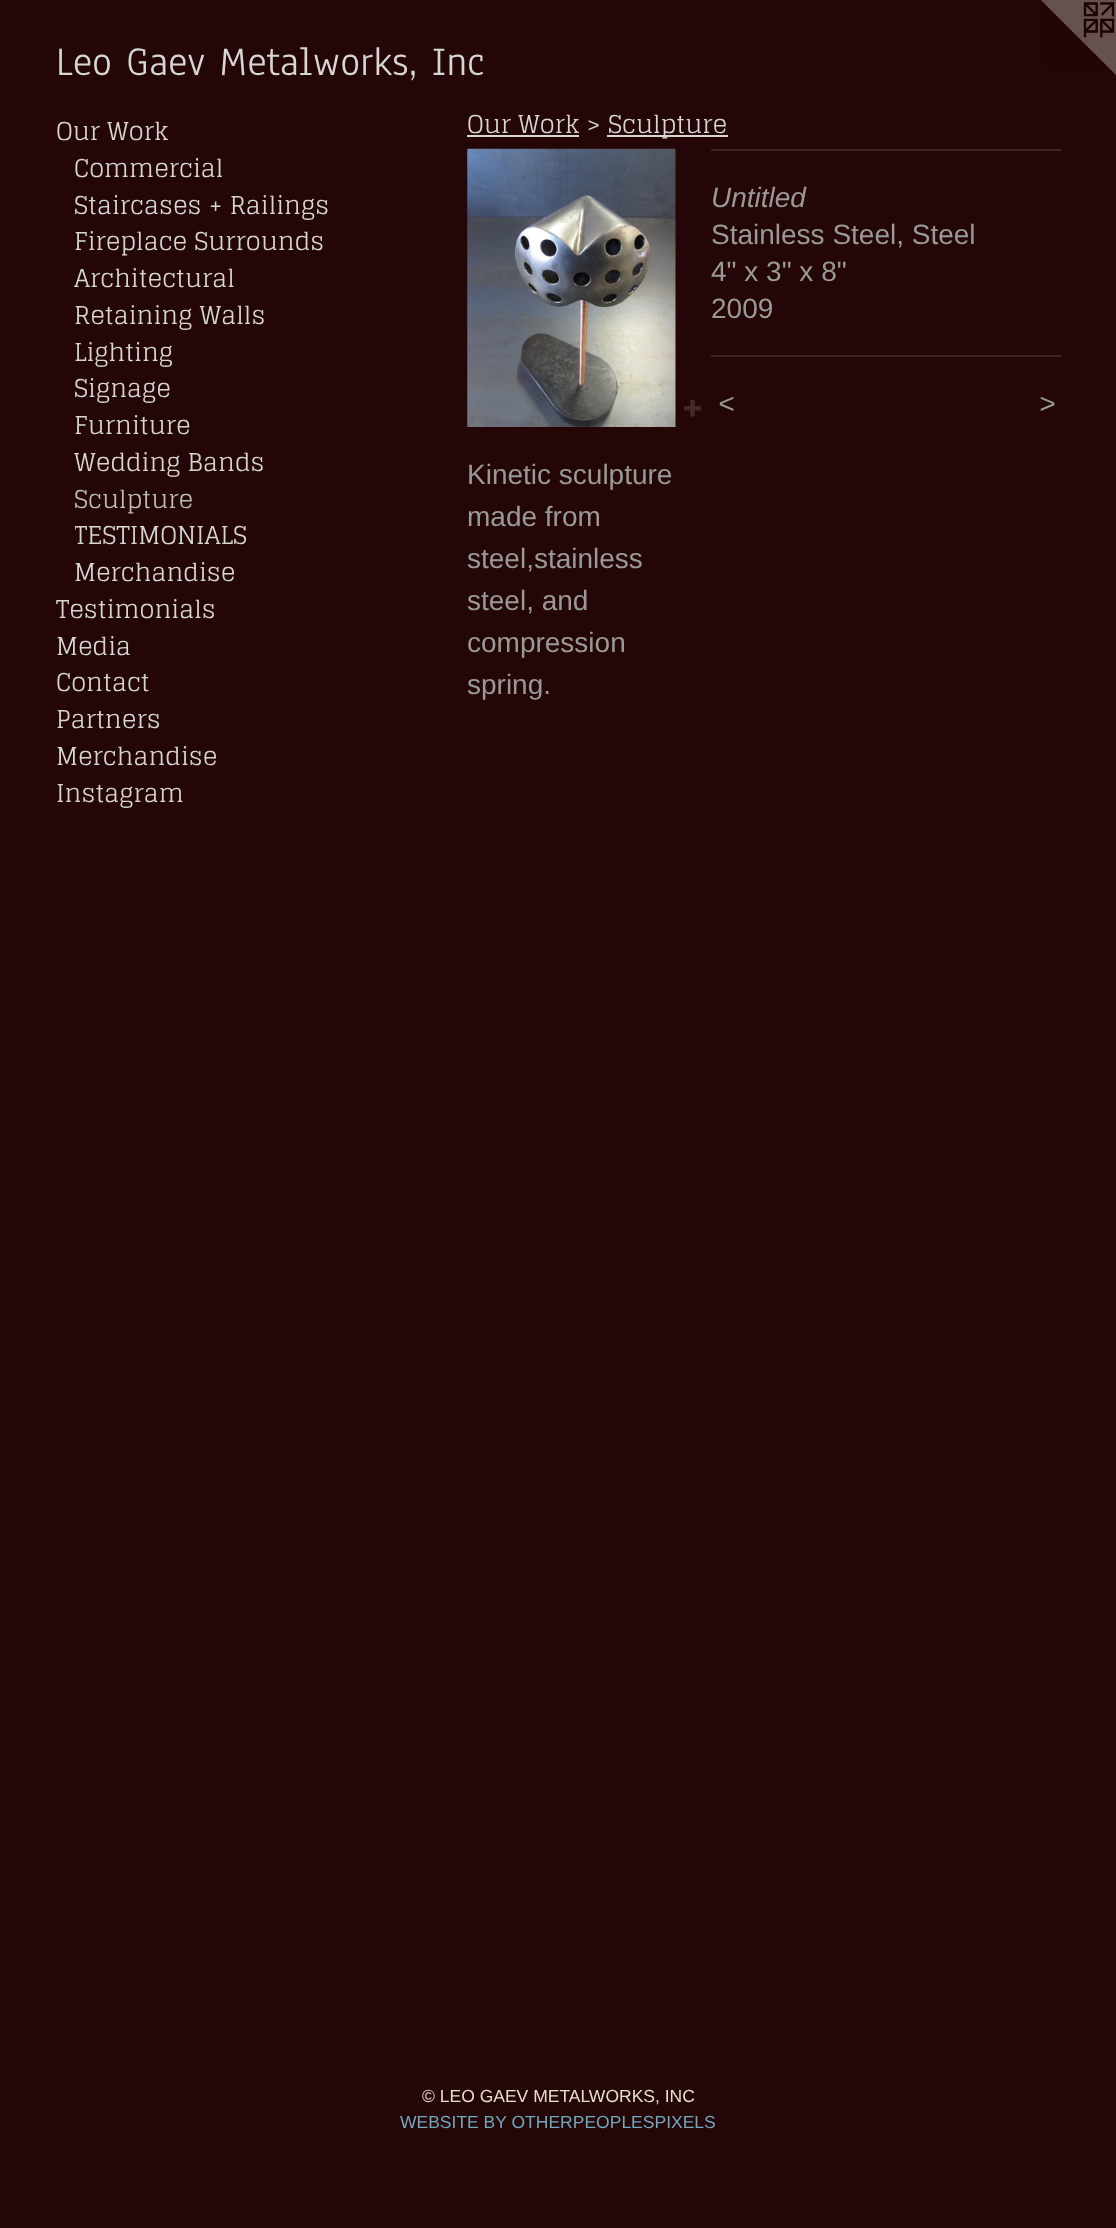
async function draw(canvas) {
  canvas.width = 1116;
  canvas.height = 2228;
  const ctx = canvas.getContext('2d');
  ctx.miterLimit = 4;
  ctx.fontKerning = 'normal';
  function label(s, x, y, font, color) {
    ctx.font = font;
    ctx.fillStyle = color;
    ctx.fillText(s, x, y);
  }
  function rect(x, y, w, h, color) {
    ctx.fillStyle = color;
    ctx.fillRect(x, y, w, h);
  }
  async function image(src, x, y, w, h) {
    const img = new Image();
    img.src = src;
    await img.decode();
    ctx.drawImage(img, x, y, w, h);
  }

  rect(0, 0, 1116, 2228, '#250606');
  label('Leo Gaev Metalworks, Inc', 56, 75, '42px Anaheim', '#d6d6d6');
  await image('assets/img1.png', 1041, 0, 75, 75);
  label('Our Work', 56, 140, '24.5px Glegoo', '#d6d6d6');
  label('Commercial', 74, 177, '24.5px Glegoo', '#d6d6d6');
  label('Staircases + Railings', 74, 214, '24.5px Glegoo', '#d6d6d6');
  label('Fireplace Surrounds', 74, 250, '24.5px Glegoo', '#d6d6d6');
  label('Architectural', 74, 287, '24.5px Glegoo', '#d6d6d6');
  label('Retaining Walls', 74, 324, '24.5px Glegoo', '#d6d6d6');
  label('Lighting', 74, 361, '24.5px Glegoo', '#d6d6d6');
  label('Signage', 74, 397, '24.5px Glegoo', '#d6d6d6');
  label('Furniture', 74, 434, '24.5px Glegoo', '#d6d6d6');
  label('Wedding Bands', 74, 471, '24.5px Glegoo', '#d6d6d6');
  label('Sculpture', 74, 508, '24.5px Glegoo', '#bdbdbd');
  ctx.save();
  ctx.beginPath();
  ctx.rect(75, 516, 331, 37);
  ctx.clip();
  label('TESTIMONIALS', 74, 544, '24.5px Glegoo', '#d6d6d6');
  ctx.restore();
  label('Merchandise', 74, 581, '24.5px Glegoo', '#d6d6d6');
  label('Testimonials', 56, 618, '24.5px Glegoo', '#d6d6d6');
  label('Media', 56, 655, '24.5px Glegoo', '#d6d6d6');
  label('Contact', 56, 691, '24.5px Glegoo', '#d6d6d6');
  label('Partners', 56, 728, '24.5px Glegoo', '#d6d6d6');
  label('Merchandise', 56, 765, '24.5px Glegoo', '#d6d6d6');
  label('Instagram', 56, 802, '24.5px Glegoo', '#d6d6d6');
  label('Our Work >', 467, 133, '24.5px Glegoo', '#d6d6d6');
  rect(467, 135, 112, 2, '#d6d6d6');
  rect(607, 135, 121, 2, '#d6d6d6');
  label('Sculpture', 608, 133, '24.5px Glegoo', '#d6d6d6');
  await image('assets/img2.png', 467, 148, 209, 279);
  await image('assets/img3.png', 684, 400, 17, 17);
  rect(711, 149, 350, 2, '#3c2323');
  label('Untitled', 711, 207, 'italic 28px Liberation Sans', '#999');
  label('Stainless Steel, Steel', 711, 244, '28px Liberation Sans', '#999');
  label('4" x 3" x 8"', 711, 281, '28px Liberation Sans', '#999');
  label('2009', 711, 318, '28px Liberation Sans', '#999');
  rect(711, 355, 350, 2, '#3c2323');
  ctx.letterSpacing = '2px';
  label('<', 718, 413, 'italic 28px Liberation Sans', '#999');
  label('>', 1039, 413, 'italic 28px Liberation Sans', '#999');
  ctx.letterSpacing = '0px';
  label('Kinetic sculpture', 467, 484, '28px Liberation Sans', '#999');
  label('made from', 467, 526, '28px Liberation Sans', '#999');
  label('steel,stainless', 467, 568, '28px Liberation Sans', '#999');
  label('steel, and', 467, 610, '28px Liberation Sans', '#999');
  label('compression', 467, 652, '28px Liberation Sans', '#999');
  label('spring.', 467, 694, '28px Liberation Sans', '#999');
  label('© LEO GAEV METALWORKS, INC', 422, 2102, '17.5px Liberation Sans', '#e7dfcb');
  label('WEBSITE BY OTHERPEOPLESPIXELS', 400, 2128, '17.5px Liberation Sans', '#70a8c0');
}

draw(document.querySelector('canvas'));
